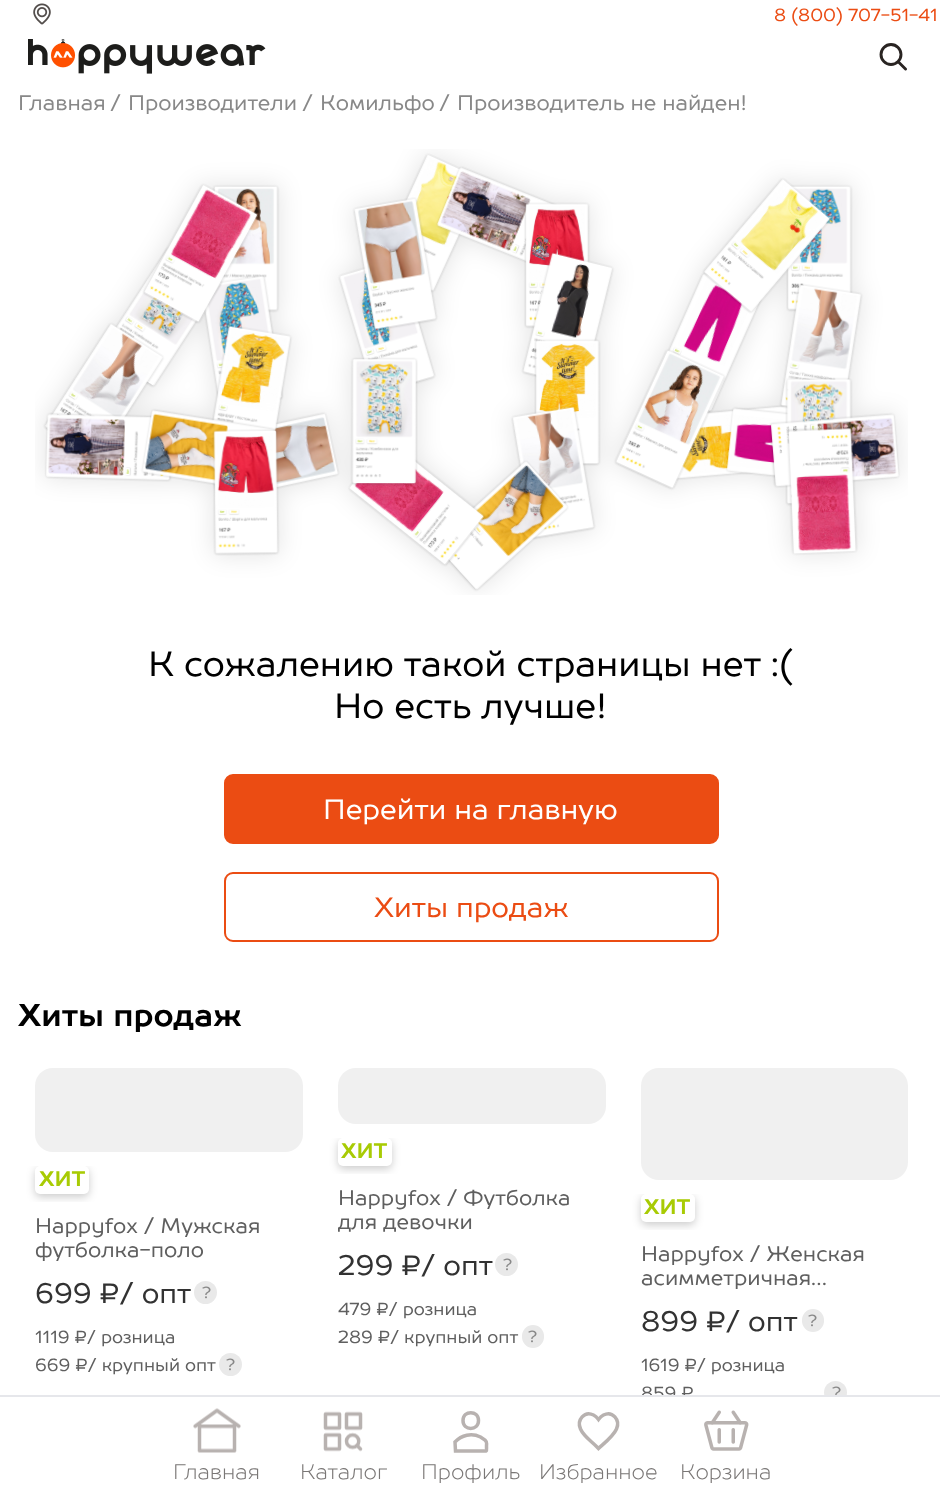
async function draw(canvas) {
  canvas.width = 940;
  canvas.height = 1493;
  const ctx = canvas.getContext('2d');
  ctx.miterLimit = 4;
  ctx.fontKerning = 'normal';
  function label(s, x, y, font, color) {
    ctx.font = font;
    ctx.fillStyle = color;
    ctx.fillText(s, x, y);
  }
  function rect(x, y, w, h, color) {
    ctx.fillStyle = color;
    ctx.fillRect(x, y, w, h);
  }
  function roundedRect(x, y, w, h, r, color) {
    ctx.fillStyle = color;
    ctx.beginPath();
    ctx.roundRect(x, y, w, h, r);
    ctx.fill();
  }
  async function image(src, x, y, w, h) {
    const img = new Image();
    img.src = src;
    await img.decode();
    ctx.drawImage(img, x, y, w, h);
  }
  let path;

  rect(0, 0, 940, 1493, '#fff');
  await image('assets/img1.png', 33, 3, 18, 22);
  label('8 (800) 707-51-41', 774, 21, '17.5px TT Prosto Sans', '#eb4c13');
  await image('assets/img2.png', 28, 39, 238, 35);
  ctx.beginPath();
  ctx.arc(891, 54.5, 10, 0, 2 * Math.PI);
  ctx.strokeStyle = '#292422';
  ctx.lineWidth = 2.9;
  ctx.stroke();
  ctx.fillStyle = '#292422';
  path = new Path2D('M904.5 70C906 71.5 908 69.5 906.5 68ZM897.5 63L904.5 70L906.5 68L899.5 61Z');
  ctx.fill(path);
  label('859 ₽', 641, 1399, '17.5px TT Prosto Sans', '#5f5f5f');
  ctx.fillStyle = '#e9e9e9';
  ctx.beginPath();
  ctx.arc(835.5, 1392.5, 11.5, 0, 2 * Math.PI);
  ctx.fill();
  label('?', 832, 1398, '16px TT Prosto Sans', '#888');
  rect(641, 1397, 205, 7, '#fff');
  rect(0, 1395, 940, 2, '#e6e7eb');
  await image('assets/img3.png', 193, 1408, 48, 45);
  label('Главная', 173, 1479, '300 21px TT Prosto Sans', '#7a7776');
  await image('assets/img4.png', 323, 1411, 40, 41);
  label('Каталог', 300, 1479, '300 21px TT Prosto Sans', '#7a7776');
  path = new Path2D('M455.5 1451L455 1442C461.5 1435 471.5 1432.5 480.5 1437L485 1440C487.5 1442.5 486.5 1442 486.5 1446C486.5 1452.5 487.5 1451 481 1451ZM478.5 1420.5C478.5 1431 463 1431 463 1420.5C463 1410 478.5 1410 478.5 1420.5Z');
  ctx.strokeStyle = '#b8b2b0';
  ctx.lineWidth = 3.5;
  ctx.stroke(path);
  label('Профиль', 421, 1479, '300 21px TT Prosto Sans', '#7a7776');
  path = new Path2D('M596.5 1446.5C591 1441 583.5 1436 580.5 1429C576.5 1420 584.5 1410.5 593.5 1415C595.5 1416 597 1417.5 598.5 1419.5C600 1417.5 601.5 1416 603.5 1415C612.5 1410.5 620.5 1420 616.5 1429C613.5 1436 604.5 1443 598.5 1448.5Z');
  ctx.stroke(path);
  label('Избранное', 539, 1479, '300 21px TT Prosto Sans', '#7a7776');
  await image('assets/img5.png', 704, 1410, 45, 41);
  label('Корзина', 680, 1479, '300 21px TT Prosto Sans', '#7a7776');
  label('Главная', 18, 110, '21px TT Prosto Sans', '#888');
  label('/', 110, 110, '21px TT Prosto Sans', '#888');
  label('Производители', 128, 110, '21px TT Prosto Sans', '#888');
  label('/', 302, 110, '21px TT Prosto Sans', '#888');
  label('Комильфо', 320, 110, '21px TT Prosto Sans', '#888');
  label('/', 439, 110, '21px TT Prosto Sans', '#888');
  label('Производитель не найден!', 457, 110, '21px TT Prosto Sans', '#888');
  await image('assets/img6.png', 35, 149, 873, 446);
  label('К сожалению такой страницы нет :(', 148, 676, '35px TT Prosto Sans', '#000');
  label('Но есть лучше!', 334, 718, '35px TT Prosto Sans', '#000');
  ctx.fillStyle = '#eb4c13';
  ctx.beginPath();
  ctx.roundRect(225, 775, 493, 68, 8);
  ctx.fill();
  ctx.strokeStyle = '#eb4c13';
  ctx.lineWidth = 2;
  ctx.stroke();
  label('Перейти на главную', 323, 819, '28px TT Prosto Sans', '#fff');
  ctx.beginPath();
  ctx.roundRect(225, 873, 493, 68, 8);
  ctx.stroke();
  label('Хиты продаж', 374, 917, '28px TT Prosto Sans', '#eb4c13');
  label('Хиты продаж', 18, 1026, 'bold 31.5px TT Prosto Sans', '#000');
  roundedRect(35, 1068, 268, 84, 18, '#f0f0f0');
  ctx.save();
  ctx.beginPath();
  ctx.rect(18, 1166, 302, 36);
  ctx.clip();
  ctx.fillStyle = '#00000033';
  ctx.filter = 'blur(4.5px)';
  ctx.beginPath();
  ctx.roundRect(35, 1169, 54, 28, 5);
  ctx.fill();
  ctx.filter = 'none';
  ctx.restore();
  roundedRect(35, 1166, 54, 28, 5, '#fff');
  label('ХИТ', 39, 1186, 'bold 21px TT Prosto Sans', '#a8cb04');
  label('Happyfox / Мужская', 35, 1233, '21px TT Prosto Sans', '#5f5f5f');
  label('футболка-поло', 35, 1257, '21px TT Prosto Sans', '#5f5f5f');
  label('699 ₽/ опт', 35, 1303, '28px TT Prosto Sans', '#323232');
  ctx.fillStyle = '#e9e9e9';
  ctx.beginPath();
  ctx.arc(205.5, 1292.5, 11.5, 0, 2 * Math.PI);
  ctx.fill();
  label('?', 202, 1298, '16px TT Prosto Sans', '#888');
  label('1119 ₽/ розница', 35, 1343, '17.5px TT Prosto Sans', '#5f5f5f');
  label('669 ₽/ крупный опт', 35, 1371, '17.5px TT Prosto Sans', '#5f5f5f');
  ctx.fillStyle = '#e9e9e9';
  ctx.beginPath();
  ctx.arc(230.5, 1364.5, 11.5, 0, 2 * Math.PI);
  ctx.fill();
  label('?', 226, 1370, '16px TT Prosto Sans', '#888');
  roundedRect(338, 1068, 268, 56, 18, '#f0f0f0');
  ctx.save();
  ctx.beginPath();
  ctx.rect(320, 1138, 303, 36);
  ctx.clip();
  ctx.fillStyle = '#00000033';
  ctx.filter = 'blur(4.5px)';
  ctx.beginPath();
  ctx.roundRect(338, 1141, 54, 28, 5);
  ctx.fill();
  ctx.filter = 'none';
  ctx.restore();
  roundedRect(338, 1138, 54, 28, 5, '#fff');
  label('ХИТ', 341, 1158, 'bold 21px TT Prosto Sans', '#a8cb04');
  label('Happyfox / Футболка', 338, 1205, '21px TT Prosto Sans', '#5f5f5f');
  ctx.save();
  ctx.beginPath();
  ctx.rect(338, 1185, 268, 49);
  ctx.clip();
  label('для девочки', 338, 1229, '21px TT Prosto Sans', '#5f5f5f');
  ctx.restore();
  label('299 ₽/ опт', 338, 1275, '28px TT Prosto Sans', '#323232');
  ctx.fillStyle = '#e9e9e9';
  ctx.beginPath();
  ctx.arc(506.5, 1264.5, 11.5, 0, 2 * Math.PI);
  ctx.fill();
  label('?', 503, 1270, '16px TT Prosto Sans', '#888');
  label('479 ₽/ розница', 338, 1315, '17.5px TT Prosto Sans', '#5f5f5f');
  label('289 ₽/ крупный опт', 338, 1343, '17.5px TT Prosto Sans', '#5f5f5f');
  roundedRect(522, 1325, 22, 23, 11, '#e9e9e9');
  label('?', 528, 1342, '16px TT Prosto Sans', '#888');
  roundedRect(641, 1068, 267, 112, 18, '#f0f0f0');
  ctx.save();
  ctx.beginPath();
  ctx.rect(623, 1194, 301, 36);
  ctx.clip();
  ctx.fillStyle = '#00000033';
  ctx.filter = 'blur(4.5px)';
  ctx.beginPath();
  ctx.roundRect(641, 1197, 54, 28, 5);
  ctx.fill();
  ctx.filter = 'none';
  ctx.restore();
  roundedRect(641, 1194, 54, 28, 5, '#fff');
  label('ХИТ', 644, 1214, 'bold 21px TT Prosto Sans', '#a8cb04');
  label('Happyfox / Женская', 641, 1261, '21px TT Prosto Sans', '#5f5f5f');
  label('асимметричная…', 641, 1285, '21px TT Prosto Sans', '#5f5f5f');
  label('899 ₽/ опт', 641, 1331, '28px TT Prosto Sans', '#323232');
  roundedRect(802, 1309, 22, 23, 11, '#e9e9e9');
  label('?', 808, 1326, '16px TT Prosto Sans', '#888');
  label('1619 ₽/ розница', 641, 1371, '17.5px TT Prosto Sans', '#5f5f5f');
}

draw(document.querySelector('canvas'));
